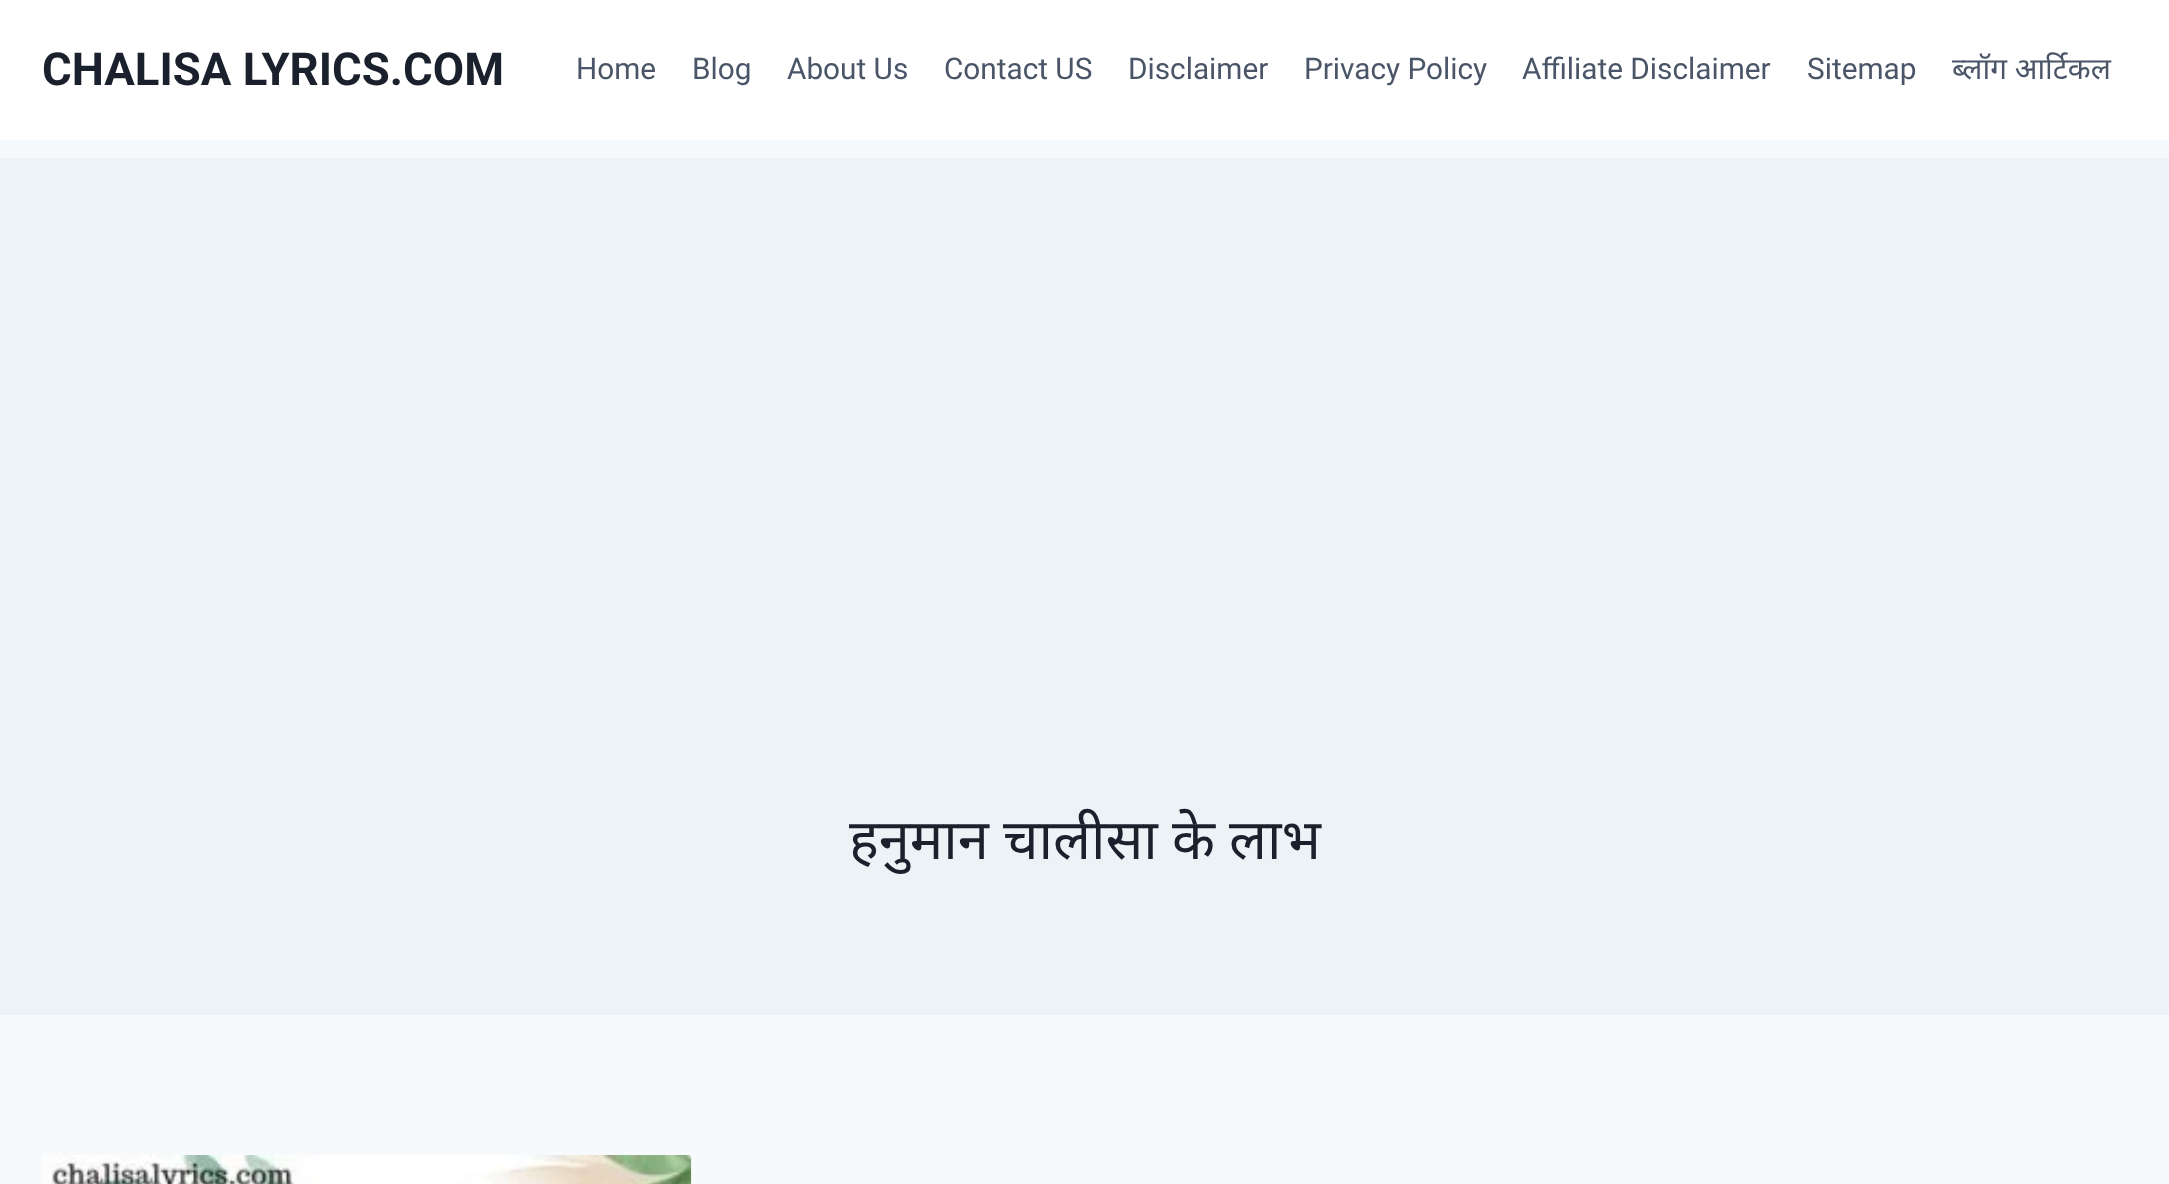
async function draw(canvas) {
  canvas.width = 2169;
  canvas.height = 1184;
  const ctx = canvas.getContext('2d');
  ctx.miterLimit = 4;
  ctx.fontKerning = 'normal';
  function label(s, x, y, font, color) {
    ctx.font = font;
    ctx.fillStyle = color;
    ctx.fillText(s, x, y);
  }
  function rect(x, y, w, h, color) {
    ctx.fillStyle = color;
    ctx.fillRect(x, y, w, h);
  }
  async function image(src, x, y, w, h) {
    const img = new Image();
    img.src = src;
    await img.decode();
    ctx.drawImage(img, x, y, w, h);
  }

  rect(0, 0, 2169, 1184, '#f7fafc');
  rect(0, 0, 2169, 140, '#fff');
  label('CHALISA LYRICS.COM', 42, 85, 'bold 45.5px Roboto', '#1a202c');
  label('Home', 576, 79, '29.75px Roboto', '#4a5568');
  label('Blog', 692, 79, '29.75px Roboto', '#4a5568');
  label('About Us', 787, 79, '29.75px Roboto', '#4a5568');
  label('Contact US', 944, 79, '29.75px Roboto', '#4a5568');
  label('Disclaimer', 1128, 79, '29.75px Roboto', '#4a5568');
  label('Privacy Policy', 1304, 79, '29.75px Roboto', '#4a5568');
  label('Affiliate Disclaimer', 1522, 79, '29.75px Roboto', '#4a5568');
  label('Sitemap', 1807, 79, '29.75px Roboto', '#4a5568');
  label('ब्लॉग आर्टिकल', 1952, 79, '29.75px Noto Sans', '#4a5568');
  rect(0, 158, 2169, 857, '#edf2f7');
  ctx.wordSpacing = '-0.5px';
  label('हनुमान चालीसा के लाभ', 849, 859, '56px Noto Sans', '#1a202c');
  await image('assets/img1.png', 42, 1155, 650, 29);
}

draw(document.querySelector('canvas'));
